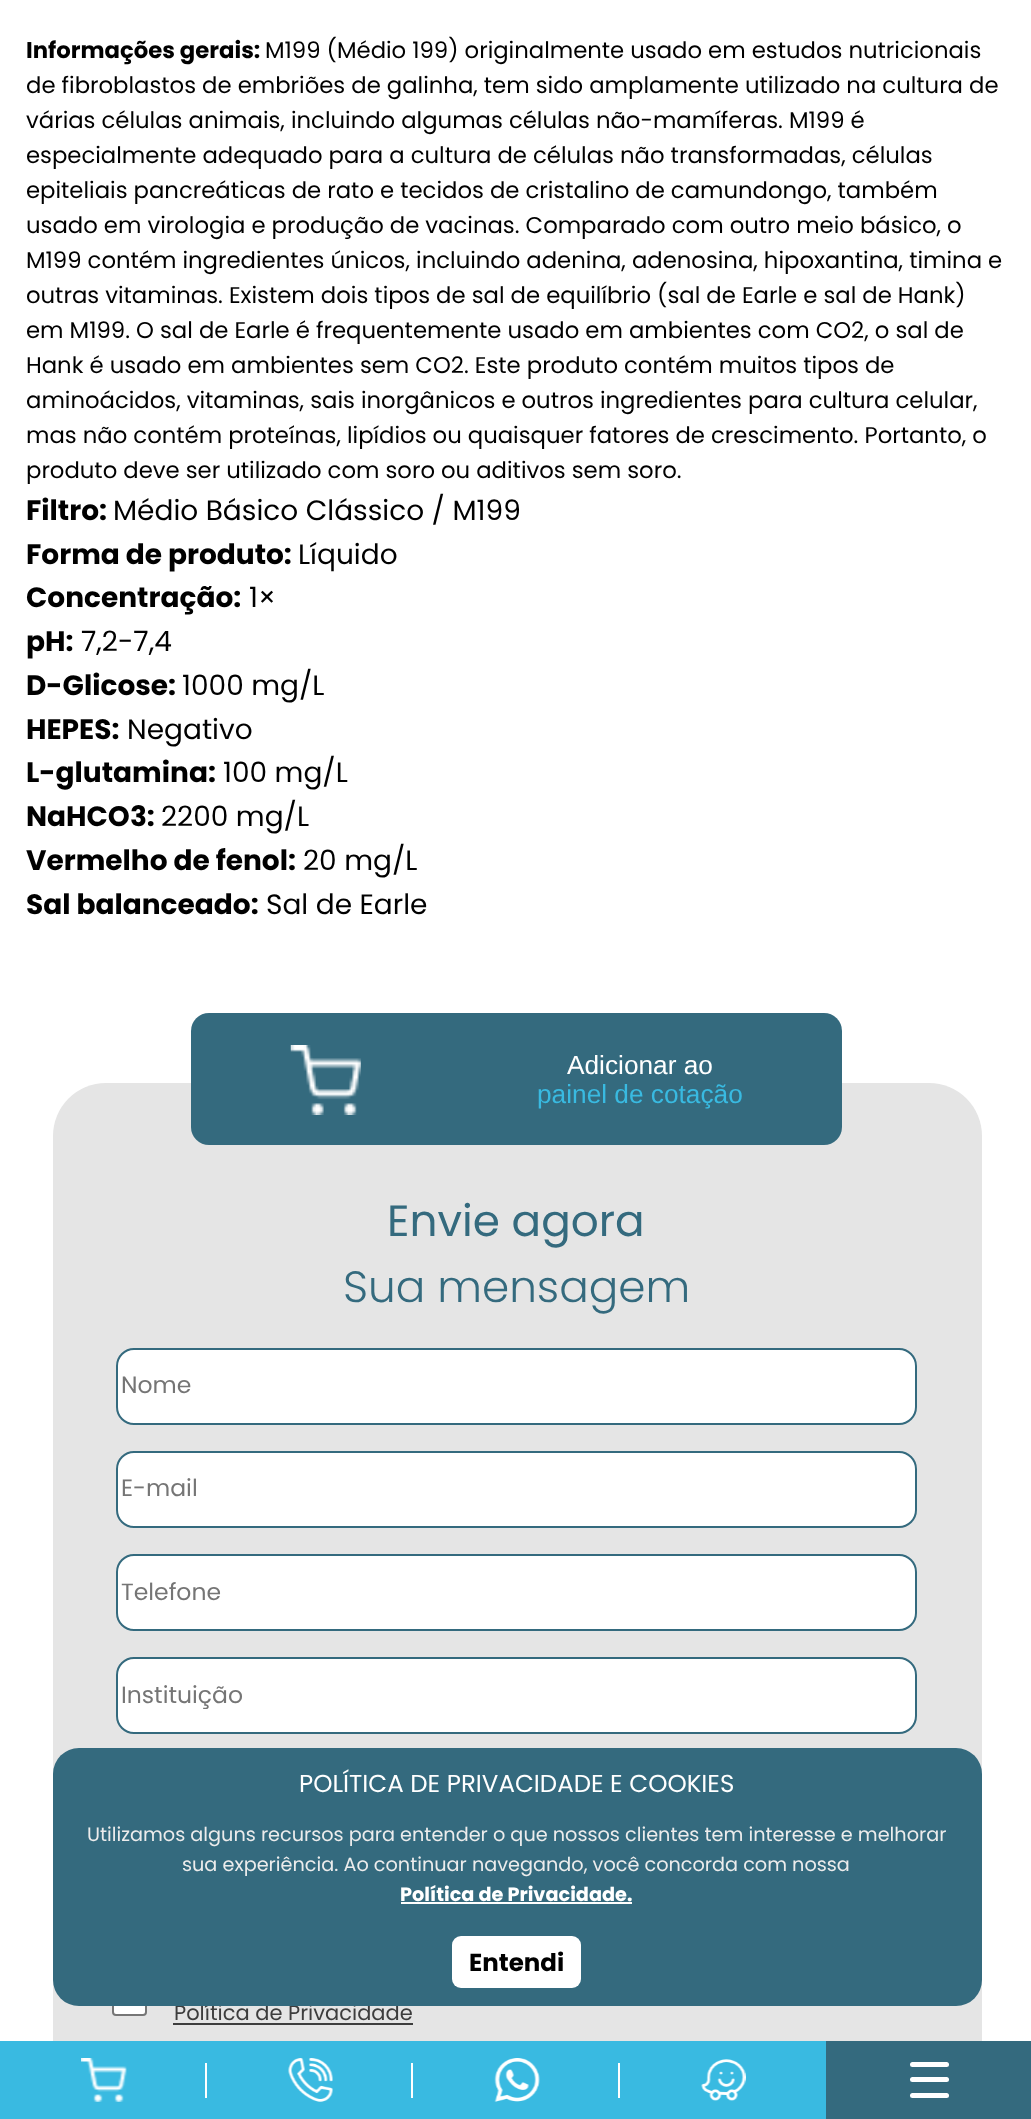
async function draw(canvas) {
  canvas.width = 1031;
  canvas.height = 2119;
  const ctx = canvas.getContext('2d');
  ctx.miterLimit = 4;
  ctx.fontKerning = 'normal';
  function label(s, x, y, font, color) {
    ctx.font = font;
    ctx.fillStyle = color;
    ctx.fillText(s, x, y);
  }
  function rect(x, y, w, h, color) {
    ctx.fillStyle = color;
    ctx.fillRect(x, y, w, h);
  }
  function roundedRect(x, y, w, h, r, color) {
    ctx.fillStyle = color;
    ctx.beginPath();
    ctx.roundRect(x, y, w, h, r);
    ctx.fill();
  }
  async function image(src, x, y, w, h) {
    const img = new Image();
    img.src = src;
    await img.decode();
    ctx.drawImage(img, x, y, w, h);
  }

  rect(0, 0, 1031, 2119, '#fff');
  label('Informações gerais:', 26, 58, 'bold 22.75px Poppins', '#000');
  label('M199 (Médio 199) originalmente usado em estudos nutricionais', 265, 58, '22.75px Poppins', '#000');
  label('de fibroblastos de embriões de galinha, tem sido amplamente utilizado na cultura de', 26, 93, '22.75px Poppins', '#000');
  label('várias células animais, incluindo algumas células não-mamíferas. M199 é', 26, 128, '22.75px Poppins', '#000');
  label('especialmente adequado para a cultura de células não transformadas, células', 26, 163, '22.75px Poppins', '#000');
  label('epiteliais pancreáticas de rato e tecidos de cristalino de camundongo, também', 26, 198, '22.75px Poppins', '#000');
  label('usado em virologia e produção de vacinas. Comparado com outro meio básico, o', 26, 233, '22.75px Poppins', '#000');
  label('M199 contém ingredientes únicos, incluindo adenina, adenosina, hipoxantina, timina e', 26, 268, '22.75px Poppins', '#000');
  label('outras vitaminas. Existem dois tipos de sal de equilíbrio (sal de Earle e sal de Hank)', 26, 303, '22.75px Poppins', '#000');
  label('em M199. O sal de Earle é frequentemente usado em ambientes com CO2, o sal de', 26, 338, '22.75px Poppins', '#000');
  label('Hank é usado em ambientes sem CO2. Este produto contém muitos tipos de', 26, 373, '22.75px Poppins', '#000');
  label('aminoácidos, vitaminas, sais inorgânicos e outros ingredientes para cultura celular,', 26, 408, '22.75px Poppins', '#000');
  label('mas não contém proteínas, lipídios ou quaisquer fatores de crescimento. Portanto, o', 26, 443, '22.75px Poppins', '#000');
  label('produto deve ser utilizado com soro ou aditivos sem soro.', 26, 478, '22.75px Poppins', '#000');
  label('Filtro:', 26, 520, 'bold 28px Poppins', '#000');
  label('Médio Básico Clássico / M199', 113, 520, '28px Poppins', '#000');
  label('Forma de produto:', 26, 564, 'bold 28px Poppins', '#000');
  label('Líquido', 298, 564, '28px Poppins', '#000');
  label('Concentração:', 26, 607, 'bold 28px Poppins', '#000');
  label('1×', 249, 607, '28px Poppins', '#000');
  label('pH:', 26, 651, 'bold 28px Poppins', '#000');
  label('7,2-7,4', 81, 651, '28px Poppins', '#000');
  label('D-Glicose:', 26, 695, 'bold 28px Poppins', '#000');
  label('1000 mg/L', 182, 695, '28px Poppins', '#000');
  label('HEPES:', 26, 739, 'bold 28px Poppins', '#000');
  label('Negativo', 127, 739, '28px Poppins', '#000');
  label('L-glutamina:', 26, 782, 'bold 28px Poppins', '#000');
  label('100 mg/L', 223, 782, '28px Poppins', '#000');
  label('NaHCO3:', 26, 826, 'bold 28px Poppins', '#000');
  label('2200 mg/L', 161, 826, '28px Poppins', '#000');
  label('Vermelho de fenol:', 26, 870, 'bold 28px Poppins', '#000');
  label('20 mg/L', 303, 870, '28px Poppins', '#000');
  label('Sal balanceado:', 26, 914, 'bold 28px Poppins', '#000');
  label('Sal de Earle', 266, 914, '28px Poppins', '#000');
  roundedRect(53, 1083, 929, 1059, 53, '#e5e5e5');
  roundedRect(191, 1013, 651, 132, 18, '#346a7e');
  await image('assets/img1.png', 290, 1045, 71, 70);
  label('Adicionar ao', 567, 1074, '26.25px Liberation Sans', '#fff');
  label('painel de cotação', 537, 1103, '26.25px Liberation Sans', '#39bae1');
  label('Envie agora', 387, 1236, '43.75px Poppins', '#346a7e');
  label('Sua mensagem', 343, 1302, '300 43.75px Poppins', '#346a7e');
  ctx.fillStyle = '#fff';
  ctx.beginPath();
  ctx.roundRect(117, 1349, 799, 75, 17);
  ctx.fill();
  ctx.strokeStyle = '#346a7e';
  ctx.lineWidth = 2;
  ctx.stroke();
  label('Nome', 121, 1393, '23.5px Poppins', '#757575');
  ctx.fillStyle = '#fff';
  ctx.beginPath();
  ctx.roundRect(117, 1452, 799, 75, 17);
  ctx.fill();
  ctx.stroke();
  label('E-mail', 121, 1496, '23.5px Poppins', '#757575');
  ctx.fillStyle = '#fff';
  ctx.beginPath();
  ctx.roundRect(117, 1555, 799, 75, 17);
  ctx.fill();
  ctx.stroke();
  label('Telefone', 121, 1600, '23.5px Poppins', '#757575');
  ctx.fillStyle = '#fff';
  ctx.beginPath();
  ctx.roundRect(117, 1658, 799, 75, 17);
  ctx.fill();
  ctx.stroke();
  label('Instituição', 121, 1703, '23.5px Poppins', '#757575');
  ctx.fillStyle = '#fff';
  ctx.beginPath();
  ctx.roundRect(113, 1982, 33, 33, 3);
  ctx.fill();
  ctx.strokeStyle = '#767676';
  ctx.stroke();
  label('Política de Privacidade', 174, 2020, '21px Poppins', '#3d3d3d');
  rect(173, 2023, 240, 2, '#3d3d3d');
  roundedRect(53, 1748, 929, 258, 26, '#346a7e');
  label('POLÍTICA DE PRIVACIDADE E COOKIES', 299, 1792, '24.5px Poppins', '#fff');
  label('Utilizamos alguns recursos para entender o que nossos clientes tem interesse e melhorar', 87, 1841, '19.25px Poppins', '#ececec');
  label('sua experiência. Ao continuar navegando, você concorda com nossa', 182, 1871, '19.25px Poppins', '#ececec');
  label('Política de Privacidade.', 400, 1901, 'bold 19.25px Poppins', '#fff');
  rect(401, 1902, 231, 2, '#fff');
  roundedRect(452, 1936, 129, 52, 9, '#fff');
  label('Entendi', 469, 1971, 'bold 24.5px Poppins', '#000');
  rect(0, 2041, 826, 78, '#39bae1');
  await image('assets/img2.png', 81, 2058, 46, 44);
  rect(205, 2063, 2, 35, '#fff');
  await image('assets/img3.png', 288, 2058, 45, 44);
  rect(411, 2063, 2, 35, '#fff');
  await image('assets/img4.png', 494, 2058, 46, 44);
  rect(618, 2063, 2, 35, '#fff');
  await image('assets/img5.png', 701, 2059, 45, 42);
  rect(826, 2041, 205, 78, '#346a7e');
  roundedRect(910, 2077, 39, 5, 2.5, '#fff');
  roundedRect(910, 2062, 39, 5, 2.5, '#fff');
  roundedRect(910, 2093, 39, 5, 2.5, '#fff');
}

draw(document.querySelector('canvas'));
